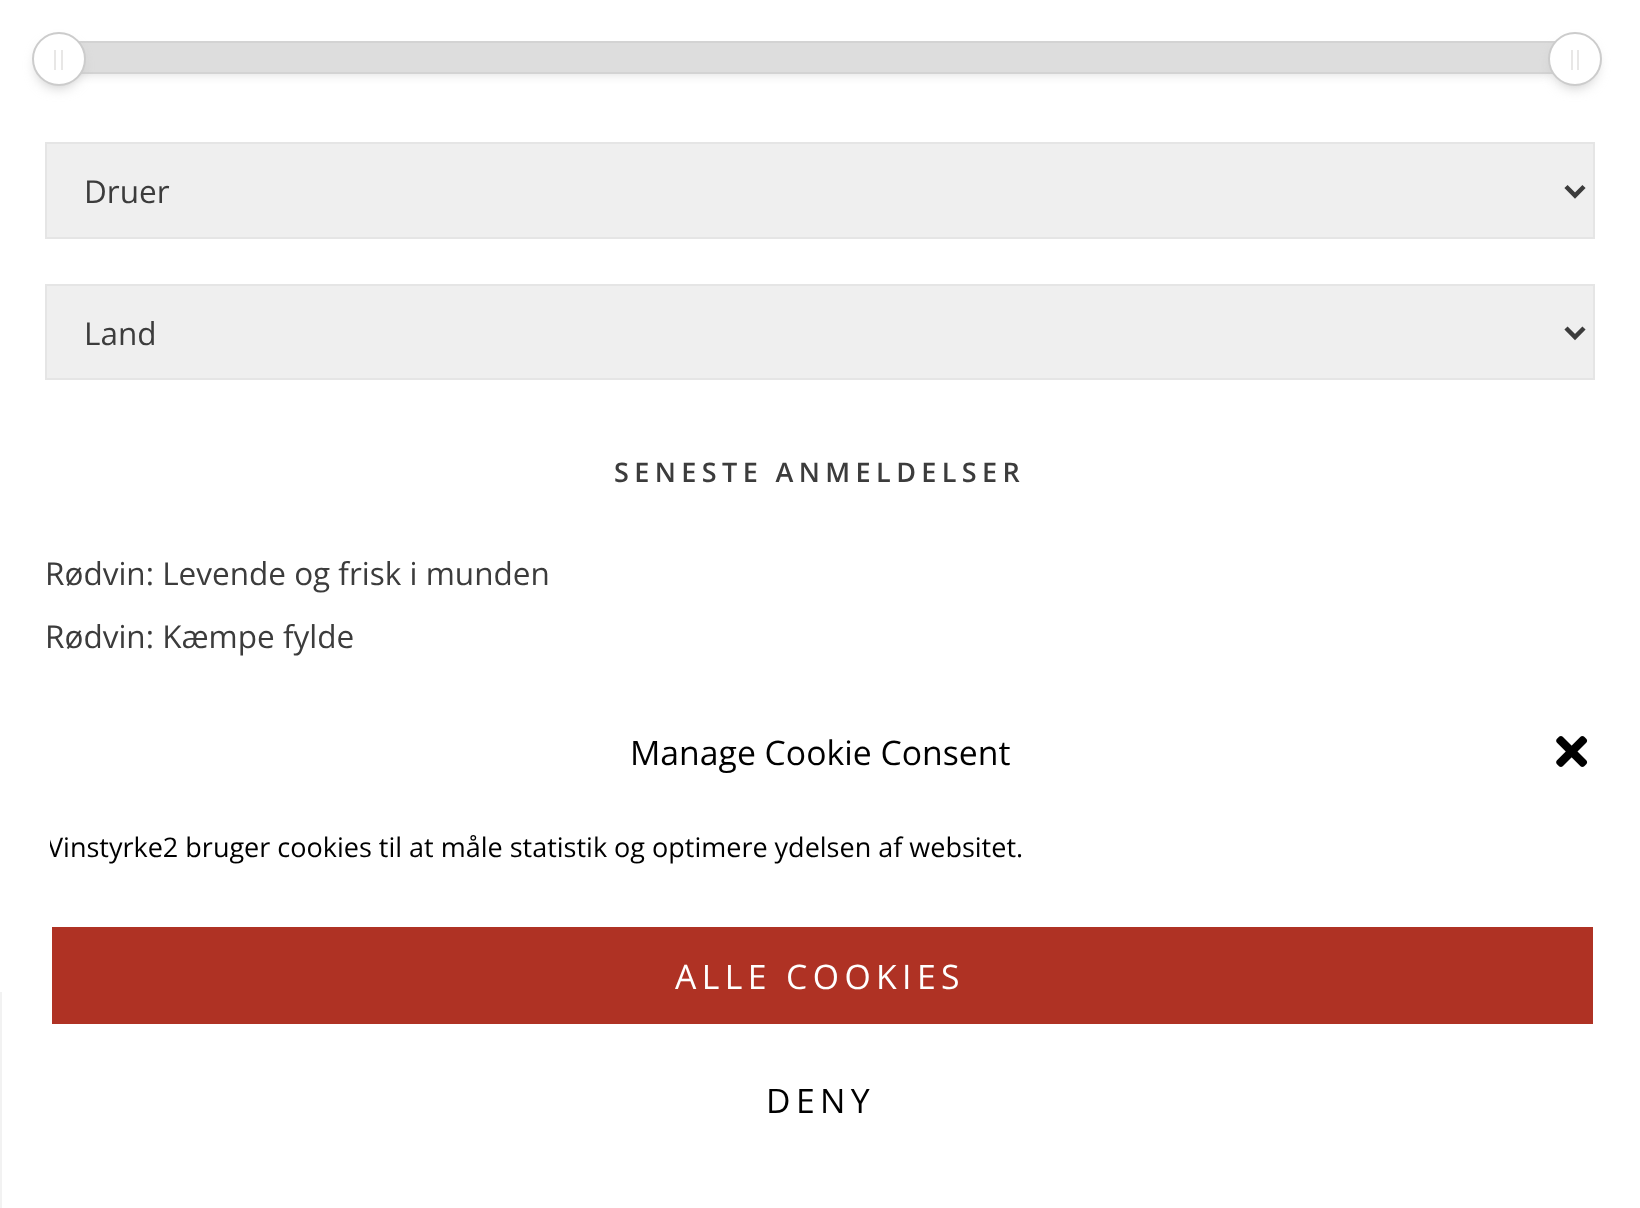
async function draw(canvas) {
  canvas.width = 1640;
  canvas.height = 1208;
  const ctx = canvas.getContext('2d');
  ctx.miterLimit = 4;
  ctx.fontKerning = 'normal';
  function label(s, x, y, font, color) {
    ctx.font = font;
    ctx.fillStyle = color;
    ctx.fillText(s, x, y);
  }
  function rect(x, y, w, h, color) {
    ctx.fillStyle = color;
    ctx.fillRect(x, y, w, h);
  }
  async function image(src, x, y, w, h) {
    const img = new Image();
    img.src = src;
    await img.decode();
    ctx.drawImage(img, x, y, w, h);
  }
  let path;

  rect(0, 0, 1640, 1208, '#fff');
  ctx.fillStyle = '#bbb';
  ctx.filter = 'blur(7px)';
  ctx.beginPath();
  ctx.rect(56, 59, 1499, 11);
  ctx.fill();
  ctx.filter = 'none';
  ctx.strokeStyle = '#d3d3d3';
  ctx.lineWidth = 2;
  ctx.strokeRect(46, 42, 1519, 31);
  rect(80, 43, 1474, 29, '#ddd');
  ctx.fillStyle = '#bbb';
  ctx.filter = 'blur(7px)';
  ctx.beginPath();
  ctx.roundRect(38, 45, 41, 41, 20.5);
  ctx.fill();
  ctx.filter = 'none';
  ctx.fillStyle = '#fff';
  ctx.beginPath();
  ctx.arc(59, 59, 26, 0, 2 * Math.PI);
  ctx.fill();
  ctx.strokeStyle = '#ccc';
  ctx.stroke();
  rect(54, 50, 2, 20, '#e8e7e6');
  rect(61, 50, 2, 20, '#e8e7e6');
  ctx.fillStyle = '#bbb';
  ctx.filter = 'blur(7px)';
  ctx.beginPath();
  ctx.roundRect(1555, 45, 40, 41, 20);
  ctx.fill();
  ctx.filter = 'none';
  ctx.fillStyle = '#fff';
  ctx.beginPath();
  ctx.arc(1575, 59, 26, 0, 2 * Math.PI);
  ctx.fill();
  ctx.stroke();
  rect(1571, 50, 2, 20, '#e8e7e6');
  rect(1577, 50, 2, 20, '#e8e7e6');
  ctx.fillStyle = '#efefef';
  ctx.beginPath();
  ctx.rect(46, 143, 1548, 95);
  ctx.fill();
  ctx.strokeStyle = '#e5e5e5';
  ctx.stroke();
  path = new Path2D('M1566 186.5L1575 195.5L1584 186.5');
  ctx.strokeStyle = '#3c3c3c';
  ctx.lineWidth = 4.5;
  ctx.stroke(path);
  label('Druer', 84, 203, '31.5px Open Sans', '#3c3c3c');
  ctx.fillStyle = '#efefef';
  ctx.beginPath();
  ctx.rect(46, 285, 1548, 94);
  ctx.fill();
  ctx.strokeStyle = '#e5e5e5';
  ctx.lineWidth = 2;
  ctx.stroke();
  path = new Path2D('M1566 328L1575 337L1584 328');
  ctx.strokeStyle = '#3c3c3c';
  ctx.lineWidth = 4.5;
  ctx.stroke(path);
  label('Land', 84, 345, '31.5px Open Sans', '#3c3c3c');
  ctx.letterSpacing = '5.4px';
  label('SENESTE ANMELDELSER', 614, 482, '600 27px Open Sans', '#3c3c3c');
  ctx.letterSpacing = '0px';
  label('Rødvin: Levende og frisk i munden', 45, 585, '31.5px Open Sans', '#3c3c3c');
  label('Rødvin: Kæmpe fylde', 45, 648, '31.5px Open Sans', '#3c3c3c');
  rect(0, 992, 2, 216, '#f2f2f2');
  label('Manage Cookie Consent', 630, 765, '33.75px Open Sans', '#000');
  await image('assets/img1.png', 1556, 736, 32, 31);
  ctx.save();
  ctx.beginPath();
  ctx.rect(50, 828, 1545, 52);
  ctx.clip();
  label('Vinstyrke2 bruger cookies til at måle statistik og optimere ydelsen af websitet.', 47, 857, '27px Open Sans', '#000');
  ctx.restore();
  rect(52, 927, 1541, 97, '#af3224');
  ctx.letterSpacing = '5.4px';
  label('ALLE COOKIES', 675, 989, '33.75px Open Sans', '#fff');
  label('DENY', 766, 1113, '33.75px Open Sans', '#000');
}

draw(document.querySelector('canvas'));
